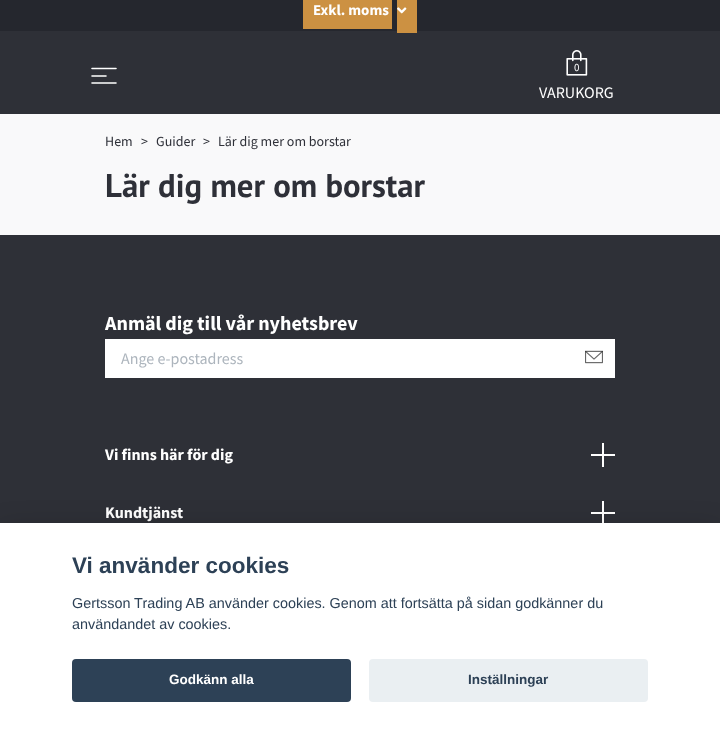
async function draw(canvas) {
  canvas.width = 720;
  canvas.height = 732;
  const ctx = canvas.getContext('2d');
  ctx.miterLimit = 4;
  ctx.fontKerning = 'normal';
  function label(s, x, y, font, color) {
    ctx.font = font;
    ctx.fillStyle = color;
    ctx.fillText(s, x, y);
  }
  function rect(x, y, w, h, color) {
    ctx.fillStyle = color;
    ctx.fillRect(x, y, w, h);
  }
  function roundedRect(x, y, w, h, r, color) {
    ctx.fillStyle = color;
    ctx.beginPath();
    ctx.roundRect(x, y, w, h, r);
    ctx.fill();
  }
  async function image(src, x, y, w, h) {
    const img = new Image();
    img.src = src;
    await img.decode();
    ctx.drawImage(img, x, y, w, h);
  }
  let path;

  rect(0, 0, 720, 732, '#f9f9fa');
  rect(0, 0, 720, 31, '#25272e');
  rect(303, 0, 89, 29, '#cc9142');
  rect(0, 31, 720, 83, '#2e3037');
  rect(397, 0, 20, 33, '#cc9142');
  label('Exkl. moms', 313, 15, 'bold 15px Source Sans Pro', '#fff');
  await image('assets/img1.png', 397, 7, 10, 7);
  path = new Path2D('M92 68.5H116M92 76H106M92 83H116');
  ctx.strokeStyle = '#fff';
  ctx.lineWidth = 1.6;
  ctx.lineCap = 'round';
  ctx.lineJoin = 'round';
  ctx.stroke(path);
  await image('assets/img2.png', 566, 50, 22, 26);
  label('0', 574, 71, '11px Source Sans Pro', '#fff');
  label('VARUKORG', 539, 98, '16px Source Sans Pro', '#fff');
  label('Hem', 105, 146, '14px Source Sans Pro', '#2e3038');
  label('>', 141, 146, '14px Source Sans Pro', '#2e3038');
  label('Guider', 156, 146, '14px Source Sans Pro', '#2e3038');
  label('>', 203, 146, '14px Source Sans Pro', '#2e3038');
  label('Lär dig mer om borstar', 218, 146, '14px Source Sans Pro', '#2e3038');
  label('Lär dig mer om borstar', 105, 197, 'bold 32.75px PT Sans', '#2e3038');
  rect(0, 235, 720, 288, '#2e3037');
  label('Anmäl dig till vår nyhetsbrev', 105, 330, 'bold 20px Source Sans Pro', '#fff');
  rect(105, 339, 510, 39, '#fff');
  label('Ange e-postadress', 121, 364, '16px Source Sans Pro', '#adb5bd');
  await image('assets/img3.png', 585, 350, 18, 14);
  label('Vi finns här för dig', 105, 460, 'bold 16px Source Sans Pro', '#fff');
  rect(602, 443, 2, 24, '#fff');
  rect(591, 454, 24, 2, '#fff');
  label('Kundtjänst', 105, 518, 'bold 16px Source Sans Pro', '#fff');
  rect(602, 501, 2, 24, '#fff');
  rect(591, 512, 24, 2, '#fff');
  ctx.fillStyle = '#02020347';
  ctx.filter = 'blur(15px)';
  ctx.beginPath();
  ctx.rect(0, 533, 720, 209);
  ctx.fill();
  ctx.filter = 'none';
  rect(0, 523, 720, 209, '#fff');
  label('Vi använder cookies', 72, 573, 'bold 22.5px Liberation Sans', '#2d4156');
  label('Gertsson Trading AB använder cookies. Genom att fortsätta på sidan godkänner du', 72, 608, '14.4px Liberation Sans', '#2d4156');
  label('användandet av cookies.', 72, 629, '14.4px Liberation Sans', '#2d4156');
  roundedRect(72, 659, 279, 43, 4, '#2d4156');
  label('Godkänn alla', 169, 684, 'bold 13.5px Liberation Sans', '#fff');
  roundedRect(369, 659, 279, 43, 4, '#eaeff2');
  label('Inställningar', 468, 684, 'bold 13.5px Liberation Sans', '#2d4156');
}

draw(document.querySelector('canvas'));
